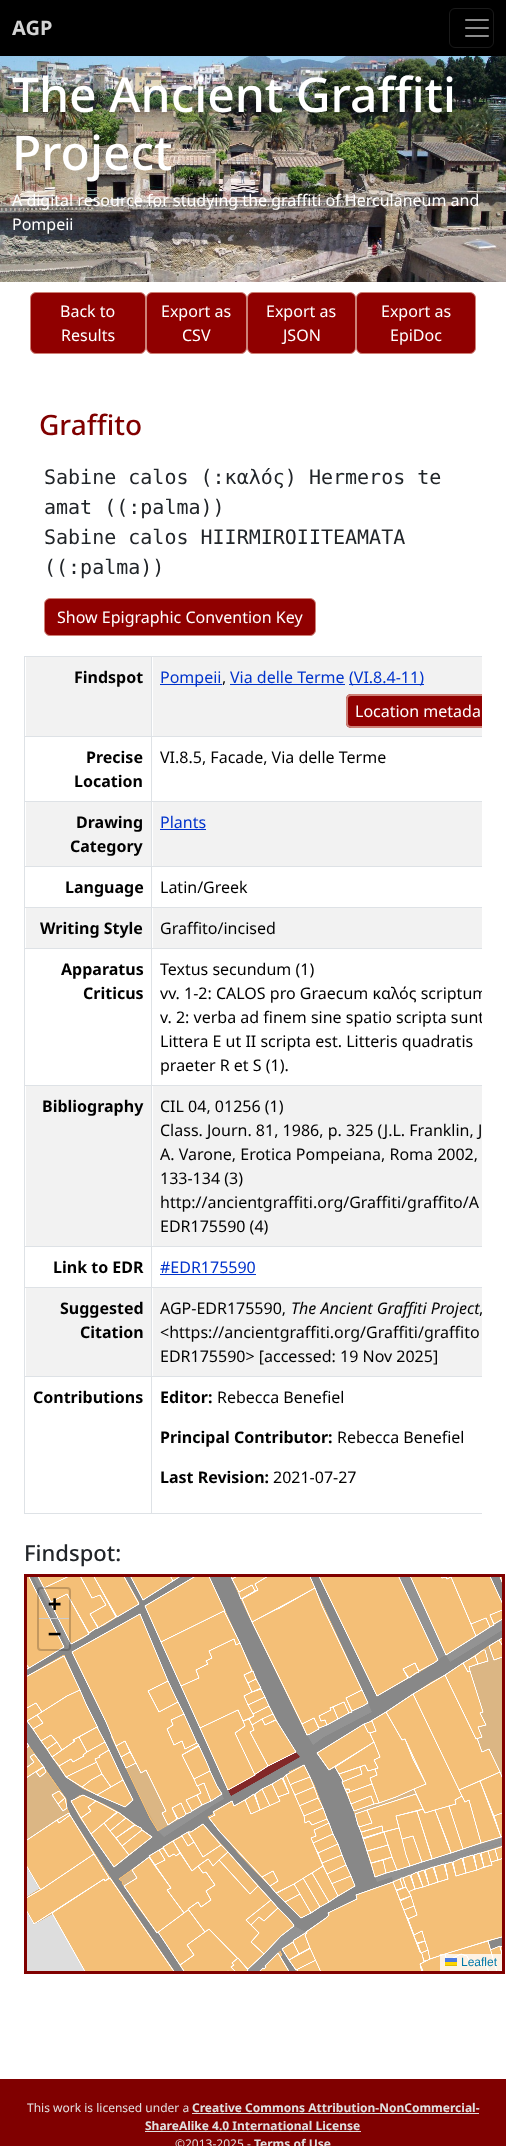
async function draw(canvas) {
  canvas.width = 506;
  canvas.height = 2146;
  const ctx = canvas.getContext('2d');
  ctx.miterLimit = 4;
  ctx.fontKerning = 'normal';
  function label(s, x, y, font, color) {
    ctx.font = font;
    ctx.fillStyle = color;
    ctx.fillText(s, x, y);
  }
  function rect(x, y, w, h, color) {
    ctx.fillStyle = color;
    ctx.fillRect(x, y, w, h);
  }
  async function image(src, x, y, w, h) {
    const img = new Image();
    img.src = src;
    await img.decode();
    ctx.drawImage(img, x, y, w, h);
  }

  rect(0, 0, 506, 2146, '#fff');
  rect(0, 0, 506, 56, '#000');
  label('AGP', 12, 35, 'bold 20px Noto Sans', '#d3d3d3');
  ctx.beginPath();
  ctx.roundRect(449.5, 8.5, 44, 39, 5.5);
  ctx.strokeStyle = '#1a1a1a';
  ctx.stroke();
  await image('assets/img1.png', 465, 19, 24, 18);
  await image('assets/img2.png', 0, 56, 506, 226);
  label('The Ancient Graffiti', 12, 112, '500 48px Noto Sans', '#fff');
  label('Project', 12, 170, '500 48px Noto Sans', '#fff');
  label('A digital resource for studying the graffiti of Herculaneum and', 12, 206, '16px Noto Sans', '#fff');
  label('Pompeii', 12, 230, '16px Noto Sans', '#fff');
  ctx.fillStyle = '#900000';
  ctx.beginPath();
  ctx.roundRect(30.5, 292.5, 115, 61, 5.5);
  ctx.fill();
  ctx.strokeStyle = '#ce8177';
  ctx.stroke();
  label('Back to', 60, 317, '16px Noto Sans', '#fff');
  label('Results', 61, 341, '16px Noto Sans', '#fff');
  ctx.fillStyle = '#900000';
  ctx.beginPath();
  ctx.roundRect(146.5, 292.5, 100, 61, 5.5);
  ctx.fill();
  ctx.stroke();
  label('Export as', 161, 317, '16px Noto Sans', '#fff');
  label('CSV', 182, 341, '16px Noto Sans', '#fff');
  ctx.fillStyle = '#900000';
  ctx.beginPath();
  ctx.roundRect(247.5, 292.5, 108, 61, 5.5);
  ctx.fill();
  ctx.stroke();
  label('Export as', 266, 317, '16px Noto Sans', '#fff');
  label('JSON', 283, 341, '16px Noto Sans', '#fff');
  ctx.fillStyle = '#900000';
  ctx.beginPath();
  ctx.roundRect(356.5, 292.5, 119, 61, 5.5);
  ctx.fill();
  ctx.stroke();
  label('Export as', 381, 317, '16px Noto Sans', '#fff');
  label('EpiDoc', 390, 341, '16px Noto Sans', '#fff');
  label('Graffito', 39, 435, '500 28px Noto Sans', '#800000');
  label('Sabine calos (:καλός) Hermeros te', 44, 484, '20px DejaVu Sans Mono', '#212529');
  label('amat ((:palma))', 44, 514, '20px DejaVu Sans Mono', '#212529');
  label('Sabine calos HIIRMIROIITEAMATA', 44, 544, '20px DejaVu Sans Mono', '#212529');
  label('((:palma))', 44, 574, '20px DejaVu Sans Mono', '#212529');
  ctx.fillStyle = '#900000';
  ctx.beginPath();
  ctx.roundRect(44.5, 598.5, 271, 37, 5.5);
  ctx.fill();
  ctx.stroke();
  label('Show Epigraphic Convention Key', 57, 623, '16px Noto Sans', '#fff');
  rect(24, 656, 458, 1, '#dee2e6');
  rect(26, 657, 125, 79, '#f2f2f2');
  label('Findspot', 74, 683, 'bold 16px Noto Sans', '#000');
  rect(153, 657, 329, 79, '#f2f2f2');
  rect(160, 684, 62, 1, '#03c');
  label('Pompeii', 160, 683, '16px Noto Sans', '#03c');
  label(',', 222, 683, '16px Noto Sans', '#000');
  label('Via delle Terme', 230, 683, '16px Noto Sans', '#03c');
  rect(230, 684, 115, 1, '#03c');
  rect(349, 684, 75, 1, '#03c');
  label('(VI.8.4-11)', 349, 683, '16px Noto Sans', '#03c');
  ctx.fillStyle = '#900000';
  ctx.beginPath();
  ctx.roundRect(346, 694, 136, 34, [5, 0, 0, 5]);
  ctx.fill();
  ctx.save();
  ctx.beginPath();
  ctx.rect(24, 656, 458, 874);
  ctx.clip();
  ctx.beginPath();
  ctx.roundRect(347, 695, 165, 32, 4);
  ctx.lineWidth = 2;
  ctx.stroke();
  ctx.restore();
  label('Location metada', 355, 717, '16px Noto Sans', '#fff');
  rect(24, 736, 458, 1, '#dee2e6');
  label('Precise', 86, 763, 'bold 16px Noto Sans', '#000');
  label('Location', 74, 787, 'bold 16px Noto Sans', '#000');
  label('VI.8.5, Facade, Via delle Terme', 160, 763, '16px Noto Sans', '#000');
  rect(24, 801, 458, 1, '#dee2e6');
  rect(26, 802, 125, 64, '#f2f2f2');
  label('Drawing', 76, 828, 'bold 16px Noto Sans', '#000');
  label('Category', 70, 852, 'bold 16px Noto Sans', '#000');
  rect(153, 802, 329, 64, '#f2f2f2');
  label('Plants', 160, 828, '16px Noto Sans', '#03c');
  rect(160, 829, 46, 1, '#03c');
  rect(24, 866, 458, 1, '#dee2e6');
  label('Language', 65, 893, 'bold 16px Noto Sans', '#000');
  label('Latin/Greek', 160, 893, '16px Noto Sans', '#000');
  rect(24, 907, 458, 1, '#dee2e6');
  rect(26, 908, 125, 40, '#f2f2f2');
  label('Writing Style', 40, 934, 'bold 16px Noto Sans', '#000');
  rect(153, 908, 329, 40, '#f2f2f2');
  label('Graffito/incised', 160, 934, '16px Noto Sans', '#000');
  rect(24, 948, 458, 1, '#dee2e6');
  label('Apparatus', 61, 975, 'bold 16px Noto Sans', '#000');
  label('Criticus', 83, 999, 'bold 16px Noto Sans', '#000');
  label('Textus secundum (1)', 160, 975, '16px Noto Sans', '#000');
  ctx.save();
  ctx.beginPath();
  ctx.rect(24, 656, 458, 874);
  ctx.clip();
  label('vv. 1-2: CALOS pro Graecum καλός scriptum', 160, 999, '16px Noto Sans', '#000');
  label('v. 2: verba ad finem sine spatio scripta sunt', 160, 1023, '16px Noto Sans', '#000');
  ctx.restore();
  label('Littera E ut II scripta est. Litteris quadratis', 160, 1047, '16px Noto Sans', '#000');
  label('praeter R et S (1).', 160, 1071, '16px Noto Sans', '#000');
  rect(24, 1085, 458, 1, '#dee2e6');
  rect(26, 1086, 125, 160, '#f2f2f2');
  label('Bibliography', 42, 1112, 'bold 16px Noto Sans', '#000');
  rect(153, 1086, 329, 160, '#f2f2f2');
  label('CIL 04, 01256 (1)', 160, 1112, '16px Noto Sans', '#000');
  label('Class. Journ. 81, 1986, p. 325 (J.L. Franklin, J', 160, 1136, '16px Noto Sans', '#000');
  label('A. Varone, Erotica Pompeiana, Roma 2002,', 160, 1160, '16px Noto Sans', '#000');
  label('133-134 (3)', 160, 1184, '16px Noto Sans', '#000');
  label('http://ancientgraffiti.org/Graffiti/graffito/A', 160, 1208, '16px Noto Sans', '#000');
  label('EDR175590 (4)', 160, 1232, '16px Noto Sans', '#000');
  rect(24, 1246, 458, 1, '#dee2e6');
  label('Link to EDR', 53, 1273, 'bold 16px Noto Sans', '#000');
  label('#EDR175590', 160, 1273, '16px Noto Sans', '#03c');
  rect(160, 1274, 96, 1, '#03c');
  rect(24, 1287, 458, 1, '#dee2e6');
  rect(26, 1288, 125, 88, '#f2f2f2');
  label('Suggested', 60, 1314, 'bold 16px Noto Sans', '#000');
  label('Citation', 80, 1338, 'bold 16px Noto Sans', '#000');
  rect(153, 1288, 329, 88, '#f2f2f2');
  label('AGP-EDR175590,', 160, 1314, '16px Noto Sans', '#000');
  label('The Ancient Graffiti Project', 291, 1314, 'italic 16px Noto Sans', '#000');
  label(',', 479, 1314, '16px Noto Sans', '#000');
  label('<https://ancientgraffiti.org/Graffiti/graffito', 160, 1338, '16px Noto Sans', '#000');
  label('EDR175590> [accessed: 19 Nov 2025]', 160, 1362, '16px Noto Sans', '#000');
  rect(24, 1376, 458, 1, '#dee2e6');
  rect(24, 1513, 458, 1, '#dee2e6');
  rect(24, 656, 1, 858, '#dee2e6');
  label('Contributions', 33, 1403, 'bold 16px Noto Sans', '#000');
  rect(151, 656, 1, 858, '#dee2e6');
  label('Editor:', 160, 1403, 'bold 16px Noto Sans', '#000');
  label('Rebecca Benefiel', 217, 1403, '16px Noto Sans', '#000');
  label('Principal Contributor:', 160, 1443, 'bold 16px Noto Sans', '#000');
  label('Rebecca Benefiel', 337, 1443, '16px Noto Sans', '#000');
  label('Last Revision:', 160, 1483, 'bold 16px Noto Sans', '#000');
  label('2021-07-27', 273, 1483, '16px Noto Sans', '#000');
  label('Findspot:', 24, 1561, '500 22px Noto Sans', '#212529');
  rect(27, 1647, 475, 324, '#ddd');
  ctx.strokeStyle = '#800000';
  ctx.lineWidth = 3;
  ctx.strokeRect(25.5, 1575.5, 478, 397);
  await image('assets/img3.png', 27, 1577, 475, 394);
  ctx.beginPath();
  ctx.roundRect(38, 1588, 32, 62, 3);
  ctx.strokeStyle = '#00000033';
  ctx.lineWidth = 2;
  ctx.stroke();
  rect(39, 1618, 30, 1, '#ccc');
  label('+', 48, 1611, 'bold 22px DejaVu Sans Mono', '#000');
  label('−', 48, 1641, 'bold 22px DejaVu Sans Mono', '#000');
  rect(440, 1954, 62, 17, '#ffffffcc');
  label('Leaflet', 461, 1966, '12px Liberation Sans', '#0078a8');
  rect(445, 1958, 12, 4, '#4c7be1');
  rect(445, 1962, 12, 3, '#ffd500');
  rect(445, 1965, 12, 1, '#e0bc00');
  rect(0, 2079, 506, 67, '#800000');
  label('This work is licensed under a', 27, 2112, '12px Noto Sans', '#e1e1e1');
  label('Creative Commons Attribution-NonCommercial-', 192, 2112, 'bold 12px Noto Sans', '#e1e1e1');
  rect(192, 2113, 287, 1, '#e1e1e1');
  label('ShareAlike 4.0 International License', 145, 2130, 'bold 12px Noto Sans', '#e1e1e1');
  rect(145, 2131, 216, 1, '#e1e1e1');
  label('©2013-2025 -', 175, 2148, '12px Noto Sans', '#e1e1e1');
  label('Terms of Use', 254, 2148, 'bold 12px Noto Sans', '#e1e1e1');
}

draw(document.querySelector('canvas'));
